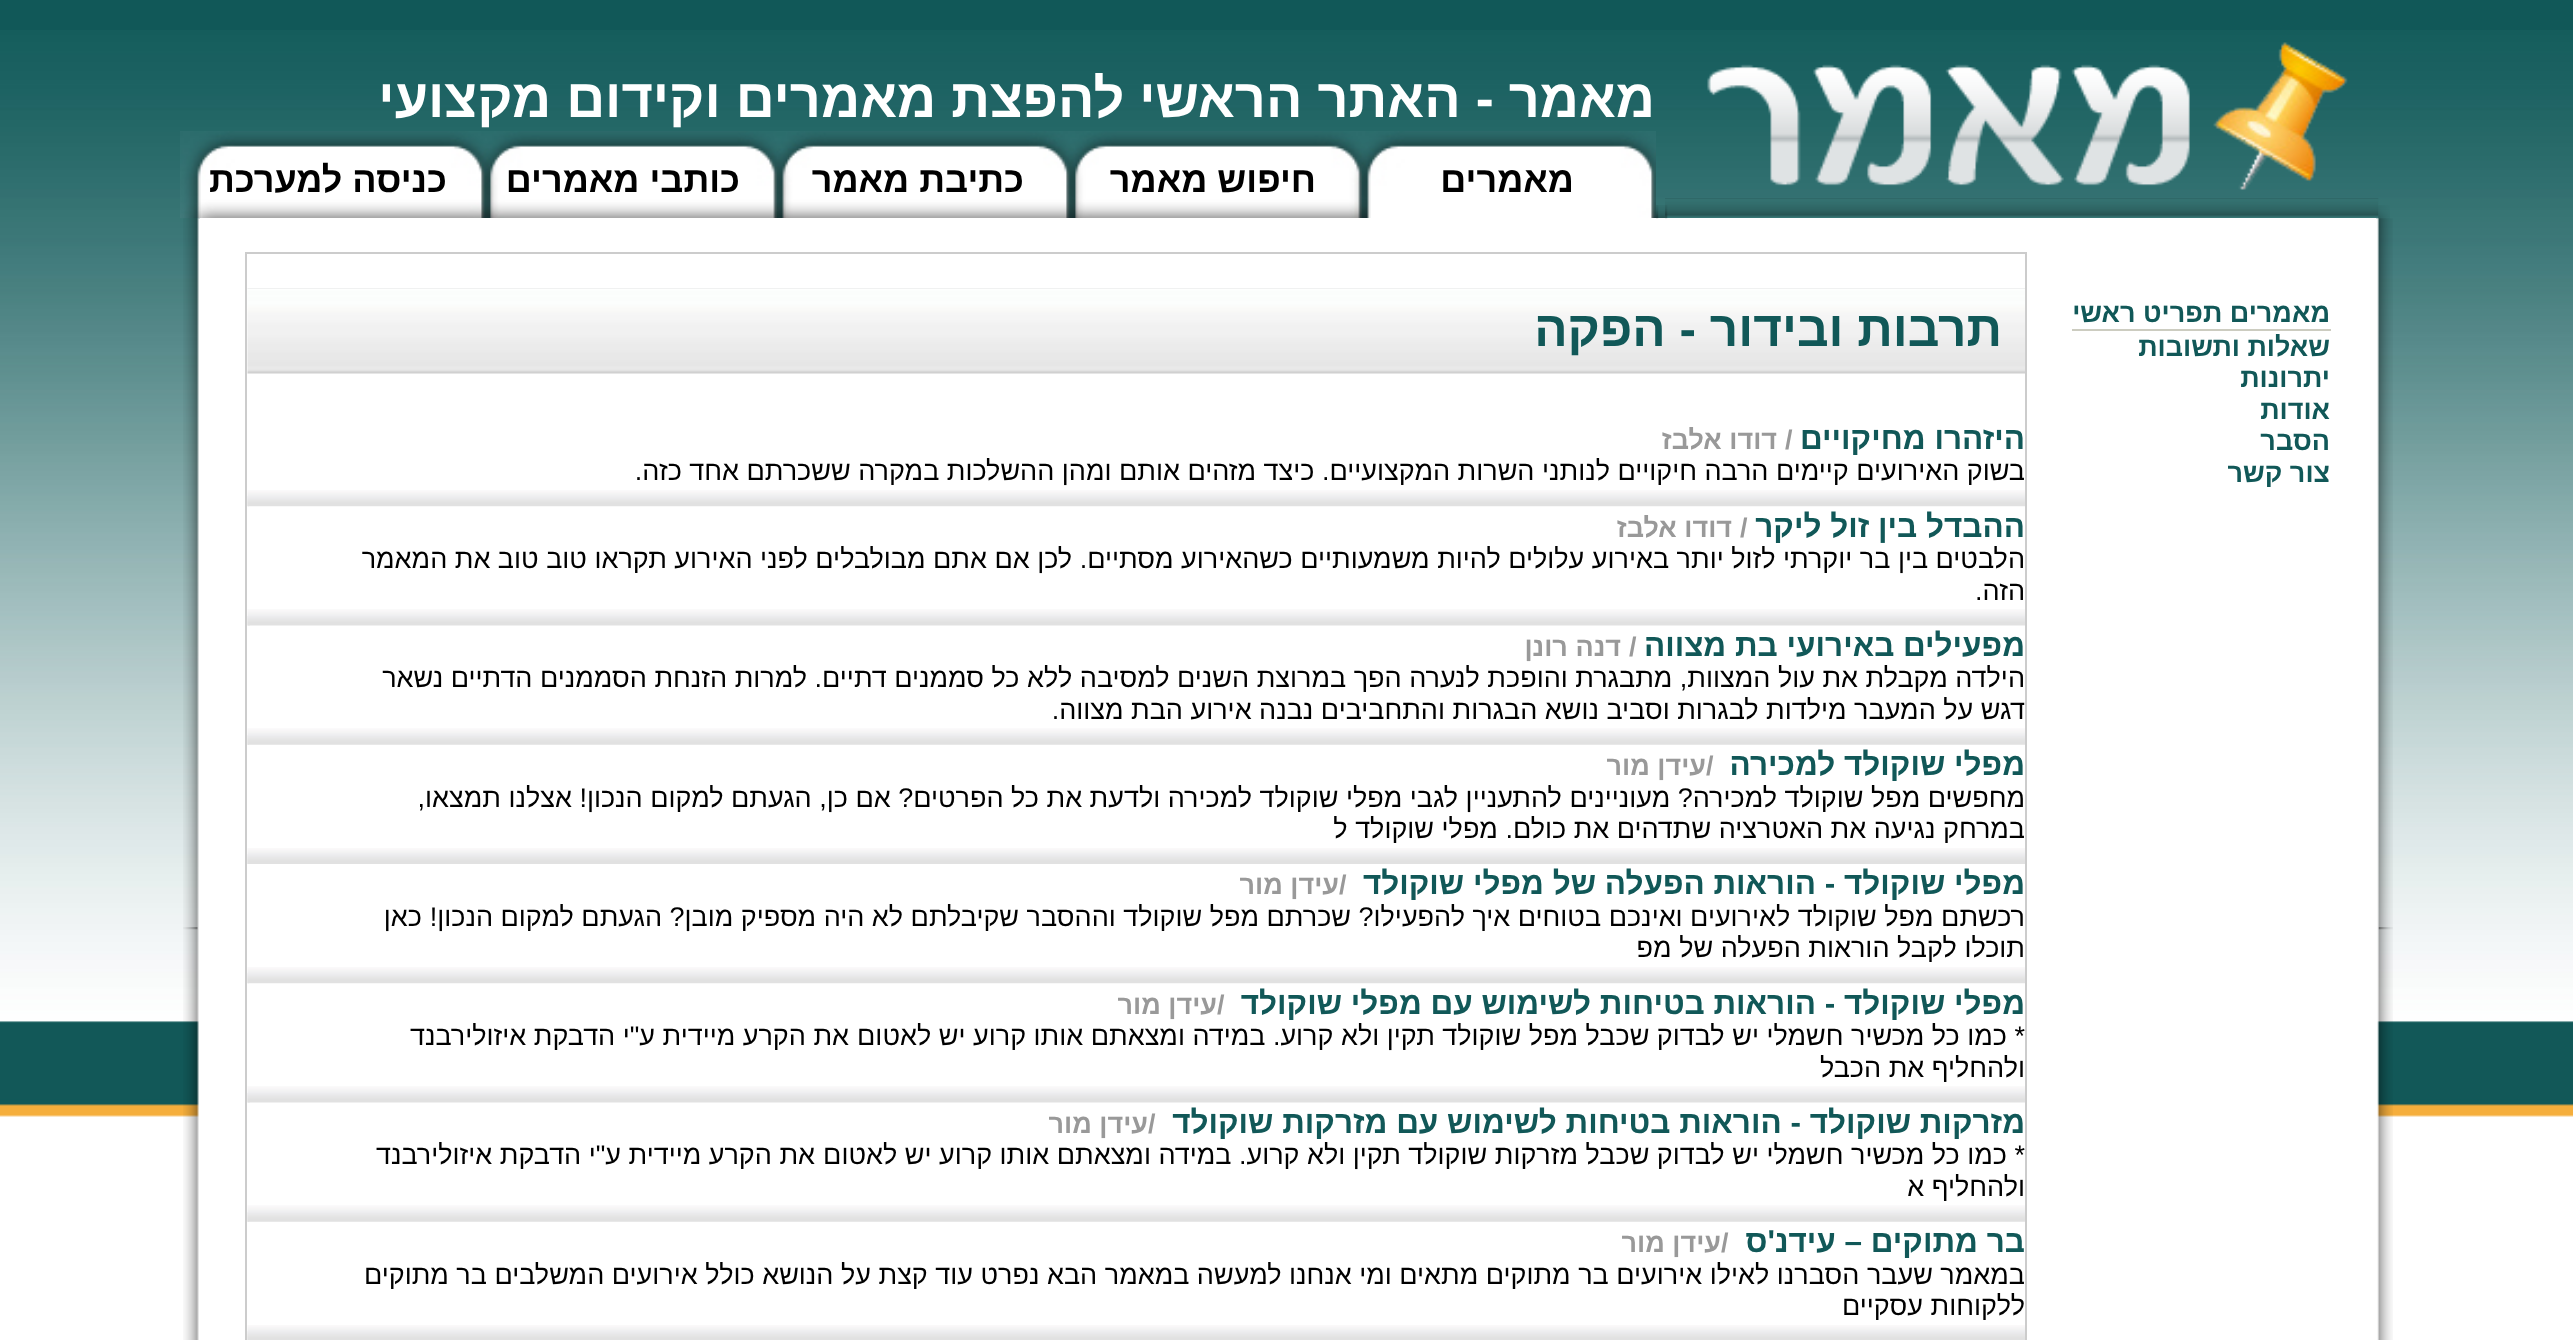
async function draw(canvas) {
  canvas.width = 2573;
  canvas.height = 1340;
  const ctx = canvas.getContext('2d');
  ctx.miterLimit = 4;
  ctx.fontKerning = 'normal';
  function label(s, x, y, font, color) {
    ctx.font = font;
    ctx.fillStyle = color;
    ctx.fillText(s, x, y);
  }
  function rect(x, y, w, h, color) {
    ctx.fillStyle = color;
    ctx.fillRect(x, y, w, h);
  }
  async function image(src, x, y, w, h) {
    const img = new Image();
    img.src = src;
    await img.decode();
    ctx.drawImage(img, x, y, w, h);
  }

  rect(0, 0, 2573, 1340, '#115858');
  await image('assets/img1.png', 0, 30, 2573, 1310);
  await image('assets/img2.png', 1707, 42, 641, 148);
  await image('assets/img4.png', 1665, 198, 714, 19);
  await image('assets/img9.png', 2376, 218, 17, 1122);
  await image('assets/img3.png', 2378, 205, 12, 14);
  await image('assets/img6.png', 180, 131, 1476, 88);
  rect(200, 218, 2176, 899, '#fff');
  await image('assets/img5.png', 1665, 205, 3, 14);
  ctx.direction = 'rtl';
  label('מאמר - האתר הראשי להפצת מאמרים וקידום מקצועי', 1655, 117, 'bold 54px Liberation Sans', '#fff');
  label('מאמרים', 1574, 192, 'bold 36px Liberation Sans', '#000');
  label('חיפוש מאמר', 1316, 192, 'bold 36px Liberation Sans', '#000');
  label('כתיבת מאמר', 1024, 192, 'bold 36px Liberation Sans', '#000');
  label('כותבי מאמרים', 740, 192, 'bold 36px Liberation Sans', '#000');
  label('כניסה למערכת', 447, 192, 'bold 36px Liberation Sans', '#000');
  await image('assets/img7.png', 1656, 205, 9, 13);
  await image('assets/img8.png', 1656, 205, 3, 14);
  await image('assets/img10.png', 2378, 927, 15, 3);
  label('מאמרים תפריט ראשי', 2330, 322, 'bold 27px Liberation Sans', '#115858');
  rect(2072, 329, 259, 2, '#ccccc0');
  label('שאלות ותשובות', 2330, 356, 'bold 27px Liberation Sans', '#115858');
  label('יתרונות', 2330, 387, 'bold 27px Liberation Sans', '#115858');
  label('אודות', 2330, 419, 'bold 27px Liberation Sans', '#115858');
  label('הסבר', 2330, 450, 'bold 27px Liberation Sans', '#115858');
  label('צור קשר', 2330, 482, 'bold 27px Liberation Sans', '#115858');
  ctx.strokeStyle = '#ccc';
  ctx.lineWidth = 2;
  ctx.strokeRect(246, 253, 1780, 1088);
  await image('assets/img11.png', 247, 288, 1778, 86);
  label('תרבות ובידור - הפקה', 2002, 346, 'bold 49.5px Liberation Sans', '#115858');
  label('היזהרו מחיקויים', 2025, 449, 'bold 31.5px Liberation Sans', '#115858');
  ctx.direction = 'ltr';
  label('/', 1785, 449, 'bold 27px Liberation Sans', '#999');
  ctx.direction = 'rtl';
  label('דודו אלבז', 1777, 449, 'bold 27px Liberation Sans', '#999');
  label('בשוק האירועים קיימים הרבה חיקויים לנותני השרות המקצועיים. כיצד מזהים אותם ומהן ההשלכות במקרה ששכרתם אחד כזה.', 2025, 480, '27px Liberation Sans', '#000');
  await image('assets/img12.png', 247, 490, 1778, 17);
  await image('assets/img13.png', 247, 496, 2, 11);
  label('ההבדל בין זול ליקר', 2025, 537, 'bold 31.5px Liberation Sans', '#115858');
  ctx.direction = 'ltr';
  label('/', 1740, 537, 'bold 27px Liberation Sans', '#999');
  ctx.direction = 'rtl';
  label('דודו אלבז', 1732, 537, 'bold 27px Liberation Sans', '#999');
  label('הלבטים בין בר יוקרתי לזול יותר באירוע עלולים להיות משמעותיים כשהאירוע מסתיים. לכן אם אתם מבולבלים לפני האירוע תקראו טוב טוב את המאמר', 2025, 568, '27px Liberation Sans', '#000');
  label('הזה.', 2025, 600, '27px Liberation Sans', '#000');
  await image('assets/img14.png', 247, 609, 1778, 17);
  await image('assets/img15.png', 247, 616, 3, 10);
  label('מפעילים באירועי בת מצווה', 2025, 656, 'bold 31.5px Liberation Sans', '#115858');
  ctx.direction = 'ltr';
  label('/', 1629, 656, 'bold 27px Liberation Sans', '#999');
  ctx.direction = 'rtl';
  label('דנה רונן', 1621, 656, 'bold 27px Liberation Sans', '#999');
  label('הילדה מקבלת את עול המצוות, מתבגרת והופכת לנערה הפך במרוצת השנים למסיבה ללא כל סממנים דתיים. למרות הזנחת הסממנים הדתיים נשאר', 2025, 687, '27px Liberation Sans', '#000');
  label('דגש על המעבר מילדות לבגרות וסביב נושא הבגרות והתחביבים נבנה אירוע הבת מצווה.', 2025, 719, '27px Liberation Sans', '#000');
  await image('assets/img16.png', 247, 728, 1778, 17);
  await image('assets/img17.png', 247, 735, 2, 10);
  label('מפלי שוקולד למכירה', 2025, 775, 'bold 31.5px Liberation Sans', '#115858');
  ctx.direction = 'ltr';
  label('/', 1706, 775, 'bold 27px Liberation Sans', '#999');
  ctx.direction = 'rtl';
  label('עידן מור', 1706, 775, 'bold 27px Liberation Sans', '#999');
  label('מחפשים מפל שוקולד למכירה? מעוניינים להתעניין לגבי מפלי שוקולד למכירה ולדעת את כל הפרטים? אם כן, הגעתם למקום הנכון! אצלנו תמצאו,', 2025, 807, '27px Liberation Sans', '#000');
  label('במרחק נגיעה את האטרציה שתדהים את כולם. מפלי שוקולד ל', 2025, 838, '27px Liberation Sans', '#000');
  await image('assets/img18.png', 247, 848, 1778, 16);
  await image('assets/img19.png', 247, 854, 1, 10);
  label('מפלי שוקולד - הוראות הפעלה של מפלי שוקולד', 2025, 894, 'bold 31.5px Liberation Sans', '#115858');
  ctx.direction = 'ltr';
  label('/', 1339, 894, 'bold 27px Liberation Sans', '#999');
  ctx.direction = 'rtl';
  label('עידן מור', 1339, 894, 'bold 27px Liberation Sans', '#999');
  label('רכשתם מפל שוקולד לאירועים ואינכם בטוחים איך להפעילו? שכרתם מפל שוקולד וההסבר שקיבלתם לא היה מספיק מובן? הגעתם למקום הנכון!', 2025, 926, '27px Liberation Sans', '#000');
  label('כאן', 422, 926, '27px Liberation Sans', '#000');
  label('תוכלו לקבל הוראות הפעלה של מפ', 2025, 957, '27px Liberation Sans', '#000');
  await image('assets/img12.png', 247, 967, 1778, 17);
  await image('assets/img13.png', 247, 973, 2, 11);
  label('מפלי שוקולד - הוראות בטיחות לשימוש עם מפלי שוקולד', 2025, 1014, 'bold 31.5px Liberation Sans', '#115858');
  ctx.direction = 'ltr';
  label('/', 1217, 1014, 'bold 27px Liberation Sans', '#999');
  ctx.direction = 'rtl';
  label('עידן מור', 1217, 1014, 'bold 27px Liberation Sans', '#999');
  label('* כמו כל מכשיר חשמלי יש לבדוק שכבל מפל שוקולד תקין ולא קרוע. במידה ומצאתם אותו קרוע יש לאטום', 2025, 1045, '27px Liberation Sans', '#000');
  label('את הקרע מיידית ע"י הדבקת איזולירבנד', 849, 1045, '27px Liberation Sans', '#000');
  label('ולהחליף את הכבל', 2025, 1077, '27px Liberation Sans', '#000');
  await image('assets/img14.png', 247, 1086, 1778, 17);
  await image('assets/img15.png', 247, 1093, 3, 10);
  label('מזרקות שוקולד - הוראות בטיחות לשימוש עם מזרקות שוקולד', 2025, 1133, 'bold 31.5px Liberation Sans', '#115858');
  ctx.direction = 'ltr';
  label('/', 1148, 1133, 'bold 27px Liberation Sans', '#999');
  ctx.direction = 'rtl';
  label('עידן מור', 1148, 1133, 'bold 27px Liberation Sans', '#999');
  label('* כמו כל מכשיר חשמלי יש לבדוק שכבל מזרקות שוקולד תקין ולא קרוע. במידה ומצאתם אותו קרוע יש לאטום', 2025, 1164, '27px Liberation Sans', '#000');
  label('את הקרע מיידית ע"י הדבקת איזולירבנד', 815, 1164, '27px Liberation Sans', '#000');
  label('ולהחליף א', 2025, 1196, '27px Liberation Sans', '#000');
  await image('assets/img16.png', 247, 1205, 1778, 17);
  await image('assets/img17.png', 247, 1212, 2, 10);
  label('בר מתוקים – עידנ\'ס', 2025, 1252, 'bold 31.5px Liberation Sans', '#115858');
  ctx.direction = 'ltr';
  label('/', 1721, 1252, 'bold 27px Liberation Sans', '#999');
  ctx.direction = 'rtl';
  label('עידן מור', 1721, 1252, 'bold 27px Liberation Sans', '#999');
  label('במאמר שעבר הסברנו לאילו אירועים בר מתוקים מתאים ומי אנחנו למעשה במאמר הבא נפרט עוד קצת על הנושא כולל אירועים המשלבים בר מתוקים', 2025, 1284, '27px Liberation Sans', '#000');
  label('ללקוחות עסקיים', 2025, 1315, '27px Liberation Sans', '#000');
  await image('assets/img20.png', 247, 1325, 1778, 15);
  await image('assets/img21.png', 247, 1331, 1, 9);
  await image('assets/img22.png', 183, 218, 17, 1122);
  await image('assets/img23.png', 183, 927, 15, 3);
}

draw(document.querySelector('canvas'));
